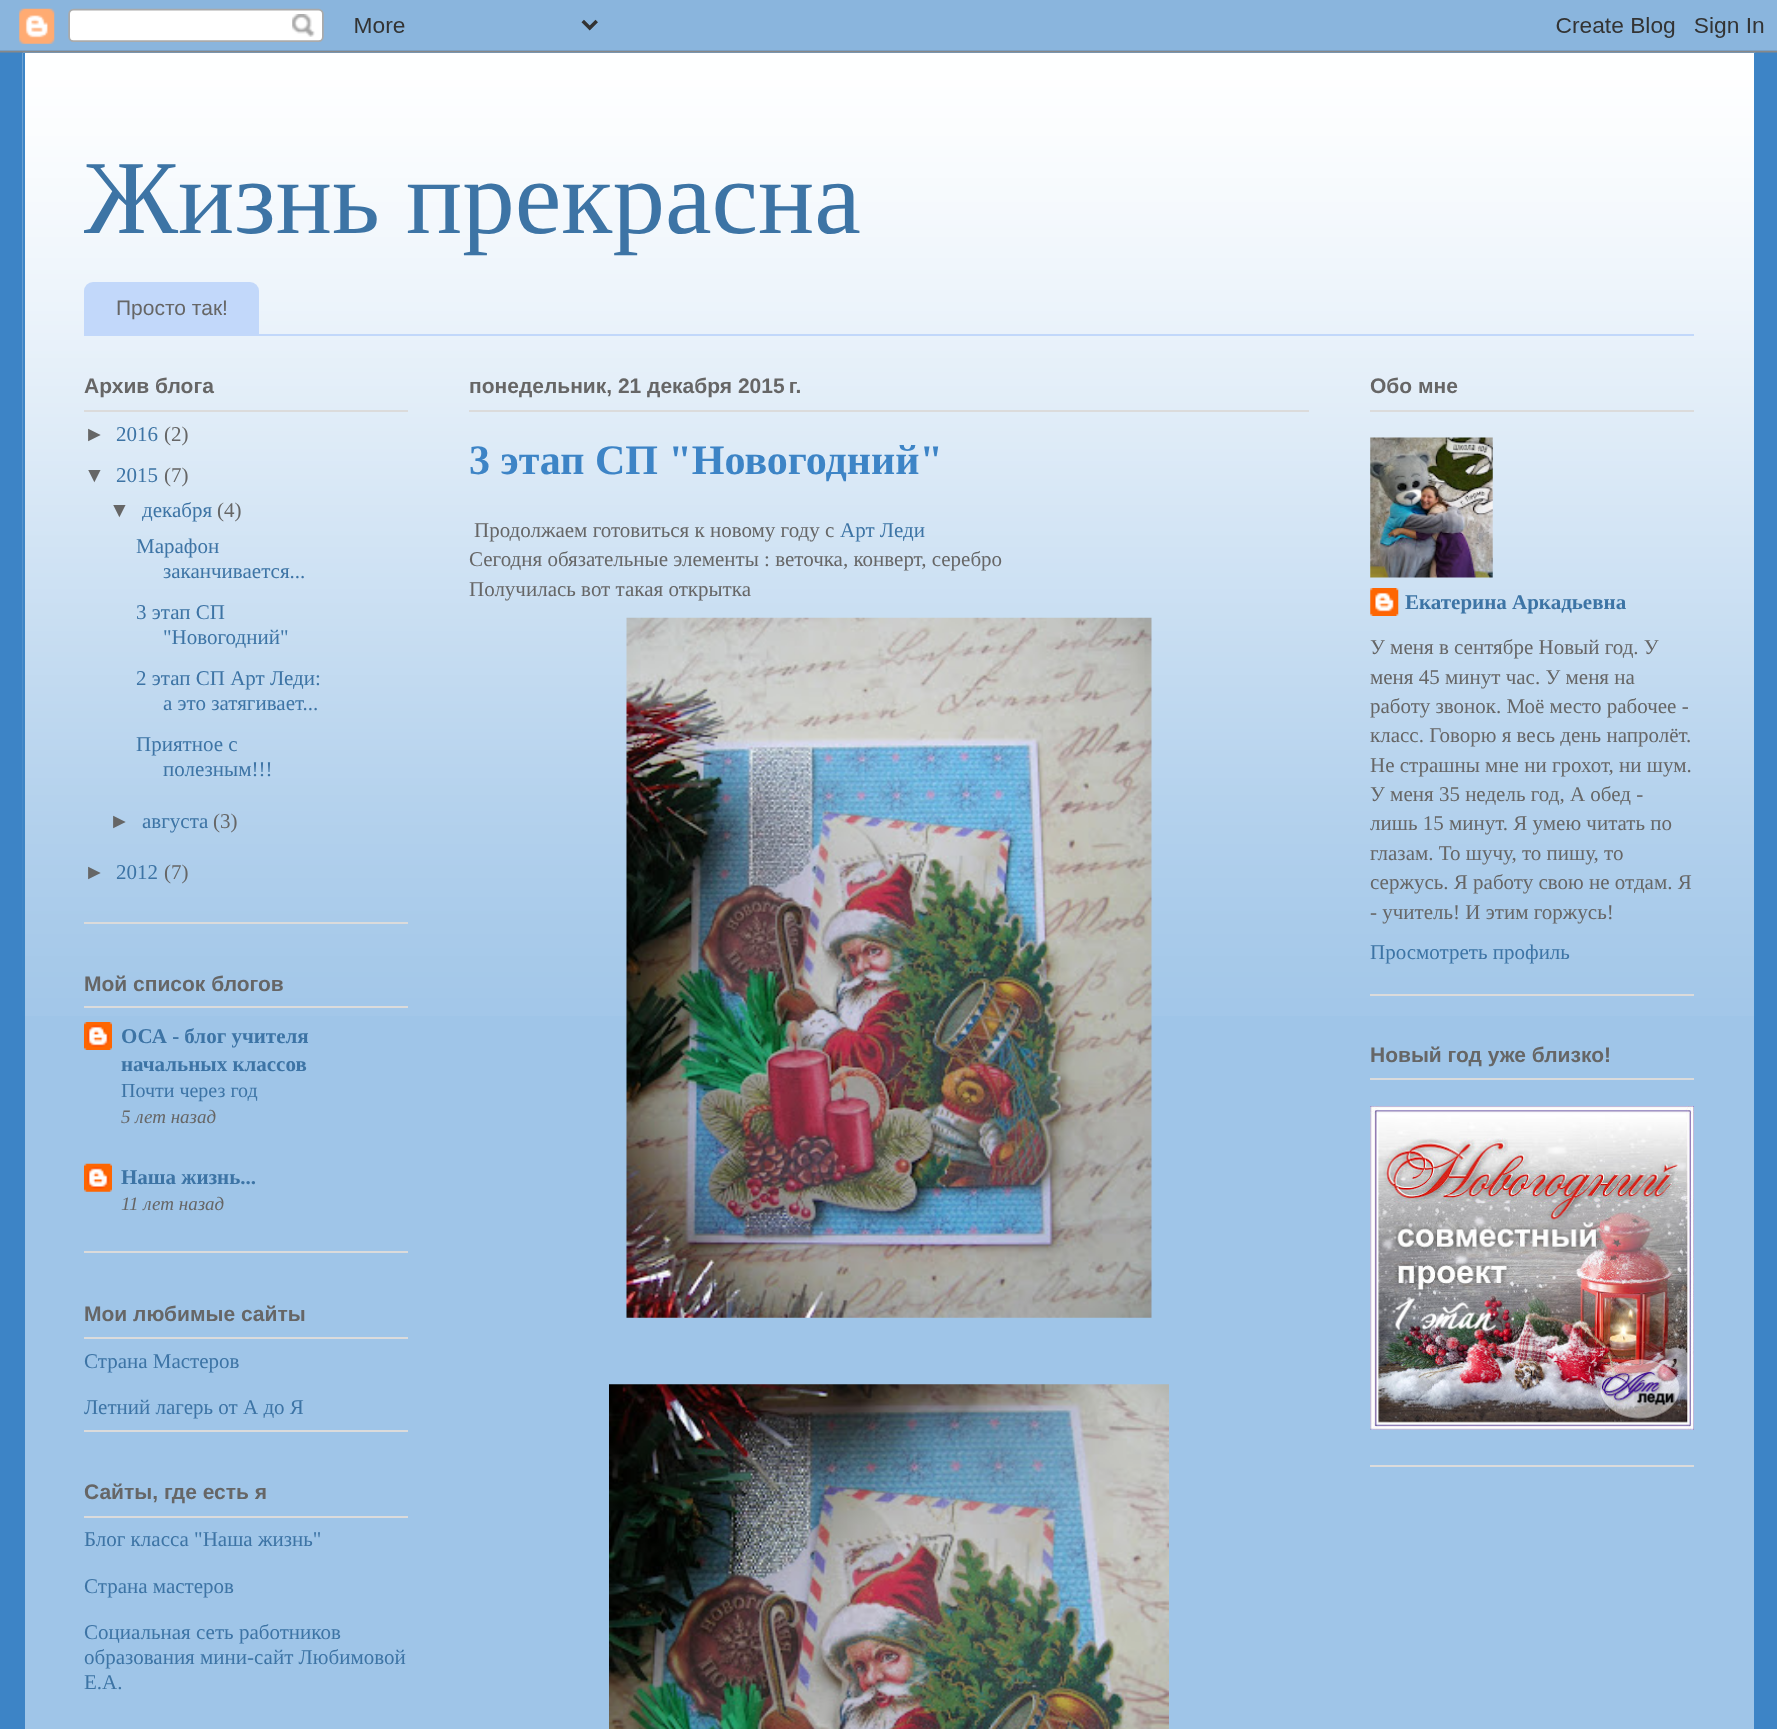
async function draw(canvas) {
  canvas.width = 1777;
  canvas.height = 1729;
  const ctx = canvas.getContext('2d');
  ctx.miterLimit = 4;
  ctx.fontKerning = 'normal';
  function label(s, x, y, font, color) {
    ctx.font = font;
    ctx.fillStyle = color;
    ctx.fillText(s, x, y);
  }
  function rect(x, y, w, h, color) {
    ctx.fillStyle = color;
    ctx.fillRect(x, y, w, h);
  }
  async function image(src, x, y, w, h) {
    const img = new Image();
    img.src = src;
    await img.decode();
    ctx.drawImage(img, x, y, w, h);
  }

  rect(0, 0, 1777, 1729, '#3d84c6');
  rect(25, 64, 1729, 1665, '#9fc5e8');
  await image('assets/img2.png', 22, 52, 1734, 964);
  await image('assets/img1.png', 0, 0, 1777, 53);
  rect(1754, 53, 2, 963, '#3d85c6');
  rect(23, 53, 2, 963, '#3d85c6');
  label('Жизнь прекрасна', 84, 233, '105px Liberation Serif', '#3d74a5');
  rect(84, 334, 1610, 2, '#c2d8fa');
  ctx.beginPath();
  ctx.roundRect(84, 282, 175, 52, [9, 9, 0, 0]);
  ctx.fill();
  label('Просто так!', 116, 315, '21px Liberation Sans', '#666');
  rect(84, 922, 324, 2, '#dbdbdb');
  rect(84, 410, 324, 2, '#dbdbdb');
  label('Архив блога', 84, 393, 'bold 21px Liberation Sans', '#666');
  label('►', 84, 441, '21px Liberation Sans', '#666');
  label('2016', 116, 441, '21px Liberation Serif', '#3d74a5');
  label('(2)', 164, 441, '21px Liberation Serif', '#666');
  label('▼', 84, 482, '21px Liberation Sans', '#666');
  label('2015', 116, 482, '21px Liberation Serif', '#3d74a5');
  label('(7)', 164, 482, '21px Liberation Serif', '#666');
  label('▼', 109, 517, '21px Liberation Sans', '#666');
  label('декабря', 142, 517, '21px Liberation Serif', '#3d74a5');
  label('(4)', 217, 517, '21px Liberation Serif', '#666');
  label('Марафон', 136, 553, '21px Liberation Serif', '#3d74a5');
  label('заканчивается...', 163, 578, '21px Liberation Serif', '#3d74a5');
  label('3 этап СП', 136, 619, '21px Liberation Serif', '#3d74a5');
  label('"Новогодний"', 163, 644, '21px Liberation Serif', '#3d74a5');
  label('2 этап СП Арт Леди:', 136, 685, '21px Liberation Serif', '#3d74a5');
  label('а это затягивает...', 163, 710, '21px Liberation Serif', '#3d74a5');
  label('Приятное с', 136, 751, '21px Liberation Serif', '#3d74a5');
  label('полезным!!!', 163, 776, '21px Liberation Serif', '#3d74a5');
  label('►', 109, 828, '21px Liberation Sans', '#666');
  label('августа', 142, 828, '21px Liberation Serif', '#3d74a5');
  label('(3)', 213, 828, '21px Liberation Serif', '#666');
  label('►', 84, 879, '21px Liberation Sans', '#666');
  label('2012', 116, 879, '21px Liberation Serif', '#3d74a5');
  label('(7)', 164, 879, '21px Liberation Serif', '#666');
  rect(84, 1251, 324, 2, '#dbdbdb');
  rect(84, 1006, 324, 2, '#dbdbdb');
  label('Мой список блогов', 84, 991, 'bold 21px Liberation Sans', '#666');
  await image('assets/img3.png', 84, 1022, 28, 28);
  label('ОСА - блог учителя', 121, 1043, 'bold 21px Liberation Serif', '#3d74a5');
  label('начальных классов', 121, 1071, 'bold 21px Liberation Serif', '#3d74a5');
  label('Почти через год', 121, 1097, '20px Liberation Serif', '#3d74a5');
  label('5 лет назад', 121, 1123, 'italic 19px Liberation Serif', '#666');
  await image('assets/img4.png', 84, 1163, 28, 29);
  label('Наша жизнь...', 121, 1184, 'bold 21px Liberation Serif', '#3d74a5');
  label('11 лет назад', 121, 1210, 'italic 19px Liberation Serif', '#666');
  rect(84, 1430, 324, 2, '#dbdbdb');
  rect(84, 1337, 324, 2, '#dbdbdb');
  label('Мои любимые сайты', 84, 1321, 'bold 21px Liberation Sans', '#666');
  label('Страна Мастеров', 84, 1368, '21px Liberation Serif', '#3d74a5');
  label('Летний лагерь от А до Я', 84, 1414, '21px Liberation Serif', '#3d74a5');
  rect(84, 1516, 324, 2, '#dbdbdb');
  label('Сайты, где есть я', 84, 1499, 'bold 21px Liberation Sans', '#666');
  label('Блог класса "Наша жизнь"', 84, 1546, '21px Liberation Serif', '#3d74a5');
  label('Страна мастеров', 84, 1593, '21px Liberation Serif', '#3d74a5');
  label('Социальная сеть работников', 84, 1639, '21px Liberation Serif', '#3d74a5');
  label('образования мини-сайт Любимовой', 84, 1664, '21px Liberation Serif', '#3d74a5');
  label('Е.А.', 84, 1689, '21px Liberation Serif', '#3d74a5');
  rect(469, 410, 840, 2, '#dbdbdb');
  label('понедельник, 21 декабря 2015 г.', 469, 393, 'bold 21px Liberation Sans', '#666');
  label('3 этап СП "Новогодний"', 469, 474, 'bold 42px Liberation Serif', '#3d84c6');
  label('Продолжаем готовиться к новому году с', 474, 537, '21px Liberation Serif', '#666');
  label('Арт Леди', 840, 537, '21px Liberation Serif', '#3d74a5');
  label('Сегодня обязательные элементы : веточка, конверт, серебро', 469, 566, '21px Liberation Serif', '#666');
  label('Получилась вот такая открытка', 469, 596, '21px Liberation Serif', '#666');
  await image('assets/img5.png', 626, 617, 526, 701);
  await image('assets/img6.png', 609, 1384, 560, 345);
  rect(1370, 994, 324, 2, '#dbdbdb');
  rect(1370, 410, 324, 2, '#dbdbdb');
  label('Обо мне', 1370, 393, 'bold 21px Liberation Sans', '#666');
  await image('assets/img7.png', 1370, 437, 123, 141);
  await image('assets/img8.png', 1370, 588, 29, 28);
  label('Екатерина Аркадьевна', 1405, 609, 'bold 21px Liberation Serif', '#3d74a5');
  label('У меня в сентябре Новый год. У', 1370, 654, '21px Liberation Serif', '#666');
  label('меня 45 минут час. У меня на', 1370, 684, '21px Liberation Serif', '#666');
  label('работу звонок. Моё место рабочее -', 1370, 713, '21px Liberation Serif', '#666');
  label('класс. Говорю я весь день напролёт.', 1370, 742, '21px Liberation Serif', '#666');
  label('Не страшны мне ни грохот, ни шум.', 1370, 772, '21px Liberation Serif', '#666');
  label('У меня 35 недель год, А обед -', 1370, 801, '21px Liberation Serif', '#666');
  label('лишь 15 минут. Я умею читать по', 1370, 830, '21px Liberation Serif', '#666');
  label('глазам. То шучу, то пишу, то', 1370, 860, '21px Liberation Serif', '#666');
  label('сержусь. Я работу свою не отдам. Я', 1370, 889, '21px Liberation Serif', '#666');
  label('- учитель! И этим горжусь!', 1370, 919, '21px Liberation Serif', '#666');
  label('Просмотреть профиль', 1370, 959, '21px Liberation Serif', '#3d74a5');
  rect(1370, 1465, 324, 2, '#dbdbdb');
  rect(1370, 1078, 324, 2, '#dbdbdb');
  label('Новый год уже близко!', 1370, 1062, 'bold 21px Liberation Sans', '#666');
  await image('assets/img9.png', 1370, 1106, 324, 324);
}

draw(document.querySelector('canvas'));
